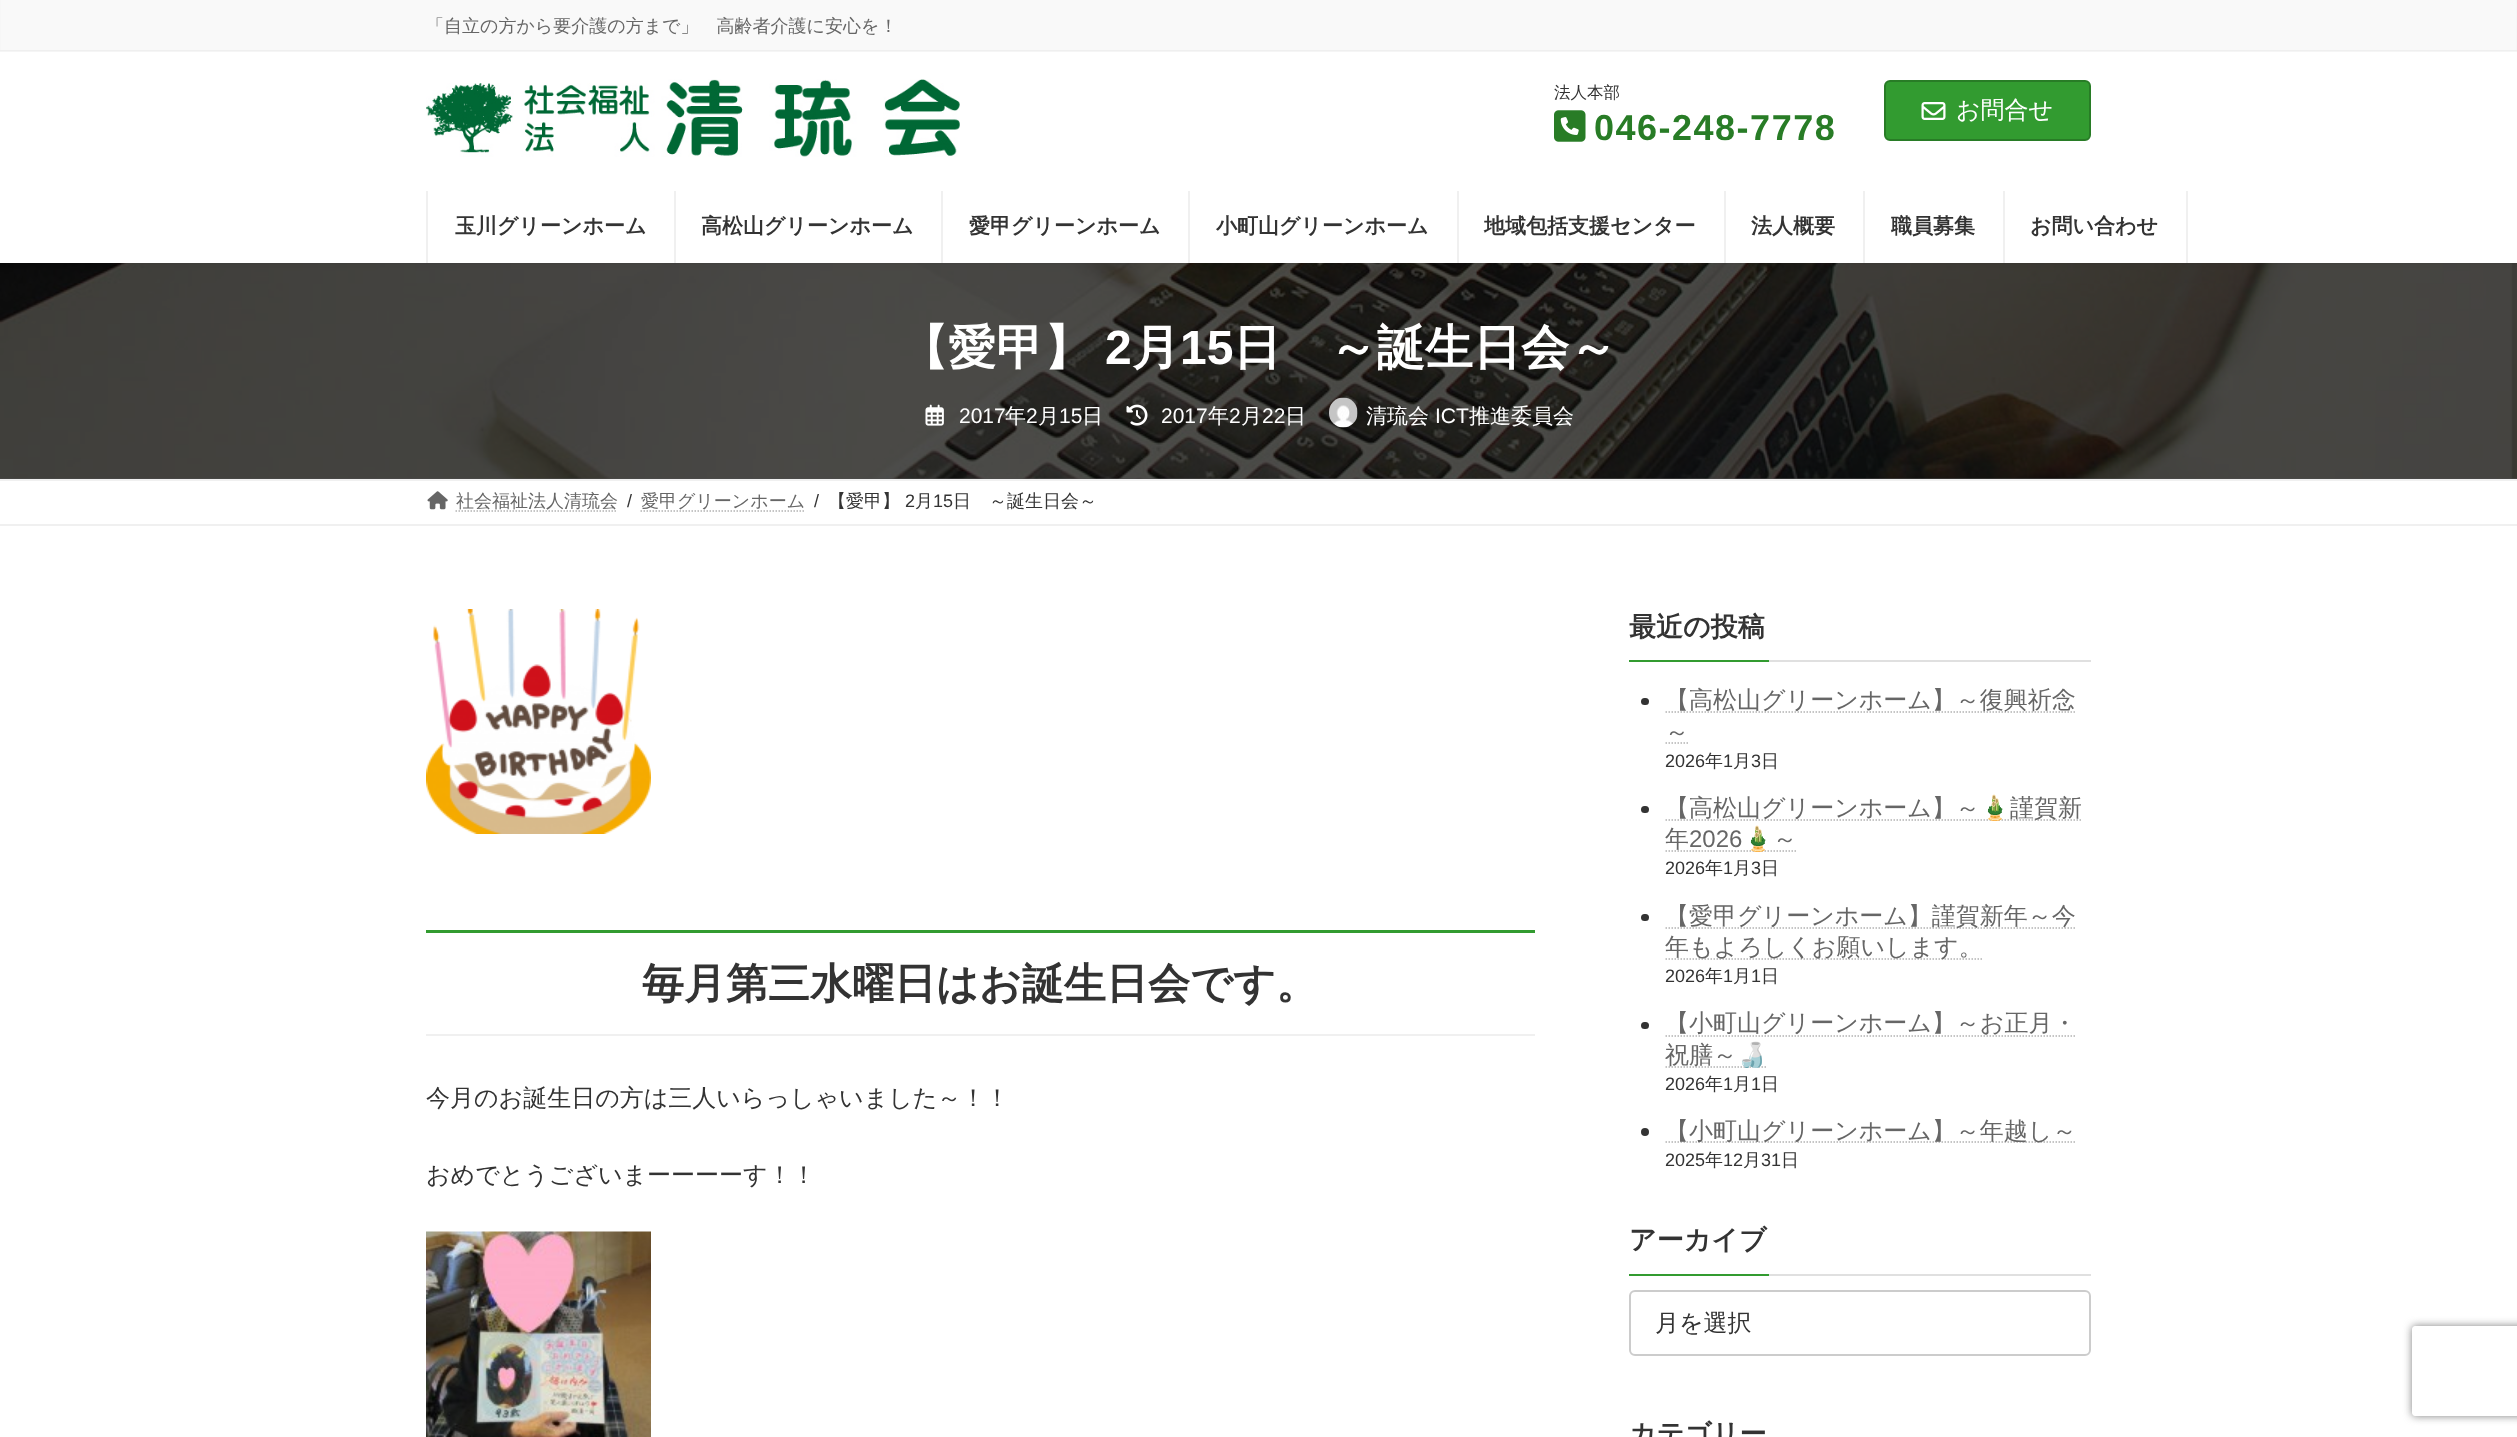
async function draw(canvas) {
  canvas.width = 2517;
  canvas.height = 1437;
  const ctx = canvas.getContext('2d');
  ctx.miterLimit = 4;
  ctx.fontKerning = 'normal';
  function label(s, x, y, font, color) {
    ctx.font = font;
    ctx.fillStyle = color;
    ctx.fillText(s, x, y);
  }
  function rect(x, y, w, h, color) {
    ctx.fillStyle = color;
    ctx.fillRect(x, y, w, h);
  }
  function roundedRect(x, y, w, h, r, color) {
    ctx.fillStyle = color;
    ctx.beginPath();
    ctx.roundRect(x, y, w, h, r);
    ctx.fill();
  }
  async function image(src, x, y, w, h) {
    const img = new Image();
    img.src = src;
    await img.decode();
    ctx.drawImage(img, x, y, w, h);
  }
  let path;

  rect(0, 0, 2517, 1437, '#fff');
  rect(0, 478, 2517, 1, '#4d4d4d');
  await image('assets/img4.png', 0, 263, 2517, 216);
  ctx.fillStyle = '#0000000d';
  ctx.filter = 'blur(2px)';
  ctx.beginPath();
  ctx.rect(0, -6, 2517, 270);
  ctx.fill();
  ctx.filter = 'none';
  rect(0, 52, 2517, 211, '#fff');
  rect(0, 51, 2517, 1, '#f5f5f5');
  rect(1, 0, 2515, 50, '#f9f9f9');
  rect(0, 50, 2517, 1, '#efefef');
  label('「自立の方から要介護の方まで」　高齢者介護に安心を！', 426, 32, '500 18px WenQuanYi Zen Hei', '#666');
  await image('assets/img1.png', 426, 79, 534, 78);
  label('法人本部', 1554, 98, '500 16.5px WenQuanYi Zen Hei', '#333');
  await image('assets/img2.png', 1554, 110, 32, 32);
  ctx.letterSpacing = '1.5px';
  label('046-248-7778', 1594, 140, 'bold 36px Liberation Sans', '#287c26');
  ctx.fillStyle = '#329b30';
  ctx.beginPath();
  ctx.roundRect(1885, 81, 205, 59, 5);
  ctx.fill();
  ctx.strokeStyle = '#287c26';
  ctx.lineWidth = 2;
  ctx.stroke();
  await image('assets/img3.png', 1921, 102, 25, 18);
  ctx.letterSpacing = '0px';
  label('お問合せ', 1956, 118, '500 24px WenQuanYi Zen Hei', '#fff');
  rect(674, 191, 2, 72, '#f0f0f0');
  rect(426, 191, 2, 72, '#f0f0f0');
  label('玉川グリーンホーム', 455, 233, 'bold 21px WenQuanYi Zen Hei', '#333');
  rect(941, 191, 2, 72, '#f0f0f0');
  label('高松山グリーンホーム', 701, 233, 'bold 21px WenQuanYi Zen Hei', '#333');
  rect(1188, 191, 2, 72, '#f0f0f0');
  label('愛甲グリーンホーム', 969, 233, 'bold 21px WenQuanYi Zen Hei', '#333');
  rect(1457, 191, 2, 72, '#f0f0f0');
  label('小町山グリーンホーム', 1216, 233, 'bold 21px WenQuanYi Zen Hei', '#333');
  rect(1724, 191, 2, 72, '#f0f0f0');
  label('地域包括支援センター', 1484, 233, 'bold 21px WenQuanYi Zen Hei', '#333');
  rect(1863, 191, 2, 72, '#f0f0f0');
  label('法人概要', 1751, 233, 'bold 21px WenQuanYi Zen Hei', '#333');
  rect(2003, 191, 2, 72, '#f0f0f0');
  label('職員募集', 1891, 233, 'bold 21px WenQuanYi Zen Hei', '#333');
  rect(2186, 191, 2, 72, '#f0f0f0');
  label('お問い合わせ', 2030, 233, 'bold 21px WenQuanYi Zen Hei', '#333');
  label('【愛甲】', 900, 364, 'bold 48px WenQuanYi Zen Hei', '#fff');
  label('2', 1105, 364, 'bold 48px Liberation Sans', '#fff');
  label('月', 1132, 364, 'bold 48px WenQuanYi Zen Hei', '#fff');
  label('15', 1180, 364, 'bold 48px Liberation Sans', '#fff');
  label('日　～誕生日会～', 1233, 364, 'bold 48px WenQuanYi Zen Hei', '#fff');
  await image('assets/img5.png', 925, 404, 19, 22);
  label('2017', 959, 423, '21px Liberation Sans', '#fff');
  label('年', 1005, 423, '500 21px WenQuanYi Zen Hei', '#fff');
  label('2', 1026, 423, '21px Liberation Sans', '#fff');
  label('月', 1038, 423, '500 21px WenQuanYi Zen Hei', '#fff');
  label('15', 1059, 423, '21px Liberation Sans', '#fff');
  label('日', 1082, 423, '500 21px WenQuanYi Zen Hei', '#fff');
  await image('assets/img6.png', 1126, 404, 22, 22);
  label('2017', 1161, 423, '21px Liberation Sans', '#fff');
  label('年', 1208, 423, '500 21px WenQuanYi Zen Hei', '#fff');
  label('2', 1229, 423, '21px Liberation Sans', '#fff');
  label('月', 1241, 423, '500 21px WenQuanYi Zen Hei', '#fff');
  label('22', 1262, 423, '21px Liberation Sans', '#fff');
  label('日', 1285, 423, '500 21px WenQuanYi Zen Hei', '#fff');
  await image('assets/img7.png', 1329, 397, 29, 31);
  label('清琉会', 1366, 423, '500 21px WenQuanYi Zen Hei', '#fff');
  label('ICT', 1435, 423, '21px Liberation Sans', '#fff');
  label('推進委員会', 1469, 423, '500 21px WenQuanYi Zen Hei', '#fff');
  rect(0, 479, 2517, 2, '#f0f0f0');
  rect(0, 524, 2517, 2, '#f0f0f0');
  await image('assets/img8.png', 427, 491, 21, 19);
  label('社会福祉法人清琉会', 456, 507, '500 18px WenQuanYi Zen Hei', '#666');
  path = new Path2D('M455.5 511H617.5');
  ctx.strokeStyle = '#b3b3b3';
  ctx.lineWidth = 1.5;
  ctx.setLineDash([1.5, 1.5]);
  ctx.stroke(path);
  label('/', 627, 507, '18px Liberation Sans', '#333');
  label('愛甲グリーンホーム', 641, 507, '500 18px WenQuanYi Zen Hei', '#666');
  path = new Path2D('M640.5 511H805');
  ctx.stroke(path);
  label('/', 814, 507, '18px Liberation Sans', '#333');
  label('【愛甲】', 828, 507, '500 18px WenQuanYi Zen Hei', '#333');
  label('2', 905, 507, '18px Liberation Sans', '#333');
  label('月', 915, 507, '500 18px WenQuanYi Zen Hei', '#333');
  label('15', 933, 507, '18px Liberation Sans', '#333');
  label('日　～誕生日会～', 953, 507, '500 18px WenQuanYi Zen Hei', '#333');
  await image('assets/img9.png', 426, 609, 225, 225);
  rect(426, 930, 1109, 3, '#329b30');
  rect(426, 1034, 1109, 2, '#f0f0f0');
  label('毎月第三水曜日はお誕生日会です。', 642, 998, 'bold 42px WenQuanYi Zen Hei', '#333');
  label('今月のお誕生日の方は三人いらっしゃいました～！！', 426, 1106, '500 24px WenQuanYi Zen Hei', '#333');
  label('おめでとうございまーーーーす！！', 426, 1183, '500 24px WenQuanYi Zen Hei', '#333');
  await image('assets/img10.png', 426, 1231, 225, 206);
  rect(1769, 660, 322, 2, '#e0e0e0');
  label('最近の投稿', 1629, 636, 'bold 27px WenQuanYi Zen Hei', '#333');
  rect(1629, 660, 140, 2, '#329b30');
  roundedRect(1641, 698, 8, 7, 3.5, '#333');
  path = new Path2D('M1665.5 712H2076');
  ctx.stroke(path);
  label('【高松山グリーンホーム】～復興祈念', 1665, 708, '500 24px WenQuanYi Zen Hei', '#666');
  label('～', 1665, 740, '500 24px WenQuanYi Zen Hei', '#666');
  path = new Path2D('M1665.5 743H1689.5');
  ctx.stroke(path);
  label('2026', 1665, 767, '18px Liberation Sans', '#333');
  label('年', 1705, 767, '500 18px WenQuanYi Zen Hei', '#333');
  label('1', 1723, 767, '18px Liberation Sans', '#333');
  label('月', 1733, 767, '500 18px WenQuanYi Zen Hei', '#333');
  label('3', 1751, 767, '18px Liberation Sans', '#333');
  label('日', 1761, 767, '500 18px WenQuanYi Zen Hei', '#333');
  roundedRect(1641, 806, 8, 7, 3.5, '#333');
  path = new Path2D('M1665.5 820H2082');
  ctx.stroke(path);
  label('【高松山グリーンホーム】～', 1665, 816, '500 24px WenQuanYi Zen Hei', '#666');
  label('🎍', 1980, 816, '24px Noto Color Emoji', '#666');
  label('謹賀新', 2010, 816, '500 24px WenQuanYi Zen Hei', '#666');
  label('年', 1665, 847, '500 24px WenQuanYi Zen Hei', '#666');
  label('2026', 1689, 847, '24px Liberation Sans', '#666');
  path = new Path2D('M1665.5 851H1796.5');
  ctx.stroke(path);
  label('🎍', 1743, 847, '24px Noto Color Emoji', '#666');
  label('～', 1773, 847, '500 24px WenQuanYi Zen Hei', '#666');
  label('2026', 1665, 874, '18px Liberation Sans', '#333');
  label('年', 1705, 874, '500 18px WenQuanYi Zen Hei', '#333');
  label('1', 1723, 874, '18px Liberation Sans', '#333');
  label('月', 1733, 874, '500 18px WenQuanYi Zen Hei', '#333');
  label('3', 1751, 874, '18px Liberation Sans', '#333');
  label('日', 1761, 874, '500 18px WenQuanYi Zen Hei', '#333');
  roundedRect(1641, 914, 8, 7, 3.5, '#333');
  path = new Path2D('M1665.5 928H2076');
  ctx.stroke(path);
  label('【愛甲グリーンホーム】謹賀新年～今', 1665, 924, '500 24px WenQuanYi Zen Hei', '#666');
  path = new Path2D('M1665.5 959H1983');
  ctx.stroke(path);
  label('年もよろしくお願いします。', 1665, 955, '500 24px WenQuanYi Zen Hei', '#666');
  label('2026', 1665, 982, '18px Liberation Sans', '#333');
  label('年', 1705, 982, '500 18px WenQuanYi Zen Hei', '#333');
  label('1', 1723, 982, '18px Liberation Sans', '#333');
  label('月', 1733, 982, '500 18px WenQuanYi Zen Hei', '#333');
  label('1', 1751, 982, '18px Liberation Sans', '#333');
  label('日', 1761, 982, '500 18px WenQuanYi Zen Hei', '#333');
  roundedRect(1641, 1022, 8, 7, 3.5, '#333');
  label('【小町山グリーンホーム】～お正月・', 1665, 1031, '500 24px WenQuanYi Zen Hei', '#666');
  path = new Path2D('M1665.5 1036H2076.5');
  ctx.stroke(path);
  path = new Path2D('M1665.5 1067H1767');
  ctx.stroke(path);
  label('祝膳～', 1665, 1063, '500 24px WenQuanYi Zen Hei', '#666');
  label('🍶', 1737, 1063, '24px Noto Color Emoji', '#666');
  label('2026', 1665, 1090, '18px Liberation Sans', '#333');
  label('年', 1705, 1090, '500 18px WenQuanYi Zen Hei', '#333');
  label('1', 1723, 1090, '18px Liberation Sans', '#333');
  label('月', 1733, 1090, '500 18px WenQuanYi Zen Hei', '#333');
  label('1', 1751, 1090, '18px Liberation Sans', '#333');
  label('日', 1761, 1090, '500 18px WenQuanYi Zen Hei', '#333');
  ctx.beginPath();
  ctx.arc(1645, 1132, 4, 0, 2 * Math.PI);
  ctx.fill();
  path = new Path2D('M1665.5 1142H2076.5');
  ctx.stroke(path);
  label('【小町山グリーンホーム】～年越し～', 1665, 1139, '500 24px WenQuanYi Zen Hei', '#666');
  label('2025', 1665, 1166, '18px Liberation Sans', '#333');
  label('年', 1705, 1166, '500 18px WenQuanYi Zen Hei', '#333');
  label('12', 1723, 1166, '18px Liberation Sans', '#333');
  label('月', 1743, 1166, '500 18px WenQuanYi Zen Hei', '#333');
  label('31', 1761, 1166, '18px Liberation Sans', '#333');
  label('日', 1781, 1166, '500 18px WenQuanYi Zen Hei', '#333');
  rect(1769, 1274, 322, 2, '#e0e0e0');
  label('アーカイブ', 1629, 1249, 'bold 27px WenQuanYi Zen Hei', '#333');
  rect(1629, 1274, 140, 2, '#329b30');
  ctx.beginPath();
  ctx.roundRect(1630, 1291, 460, 64, 5);
  ctx.strokeStyle = '#ccc';
  ctx.lineWidth = 2;
  ctx.setLineDash([]);
  ctx.stroke();
  label('月を選択', 1655, 1331, '500 24px WenQuanYi Zen Hei', '#333');
  label('カテゴリー', 1629, 1443, 'bold 27px WenQuanYi Zen Hei', '#333');
  ctx.save();
  path = new Path2D('M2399 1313H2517V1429H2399ZM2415 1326H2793C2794.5 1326 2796 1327.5 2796 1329V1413C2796 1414.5 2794.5 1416 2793 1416H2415C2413.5 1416 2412 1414.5 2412 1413V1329C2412 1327.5 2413.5 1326 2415 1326Z');
  ctx.clip(path, 'evenodd');
  ctx.fillStyle = '#808080';
  ctx.filter = 'blur(4px)';
  ctx.beginPath();
  ctx.roundRect(2412, 1326, 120, 90, 3);
  ctx.fill();
  ctx.filter = 'none';
  ctx.restore();
}

draw(document.querySelector('canvas'));
